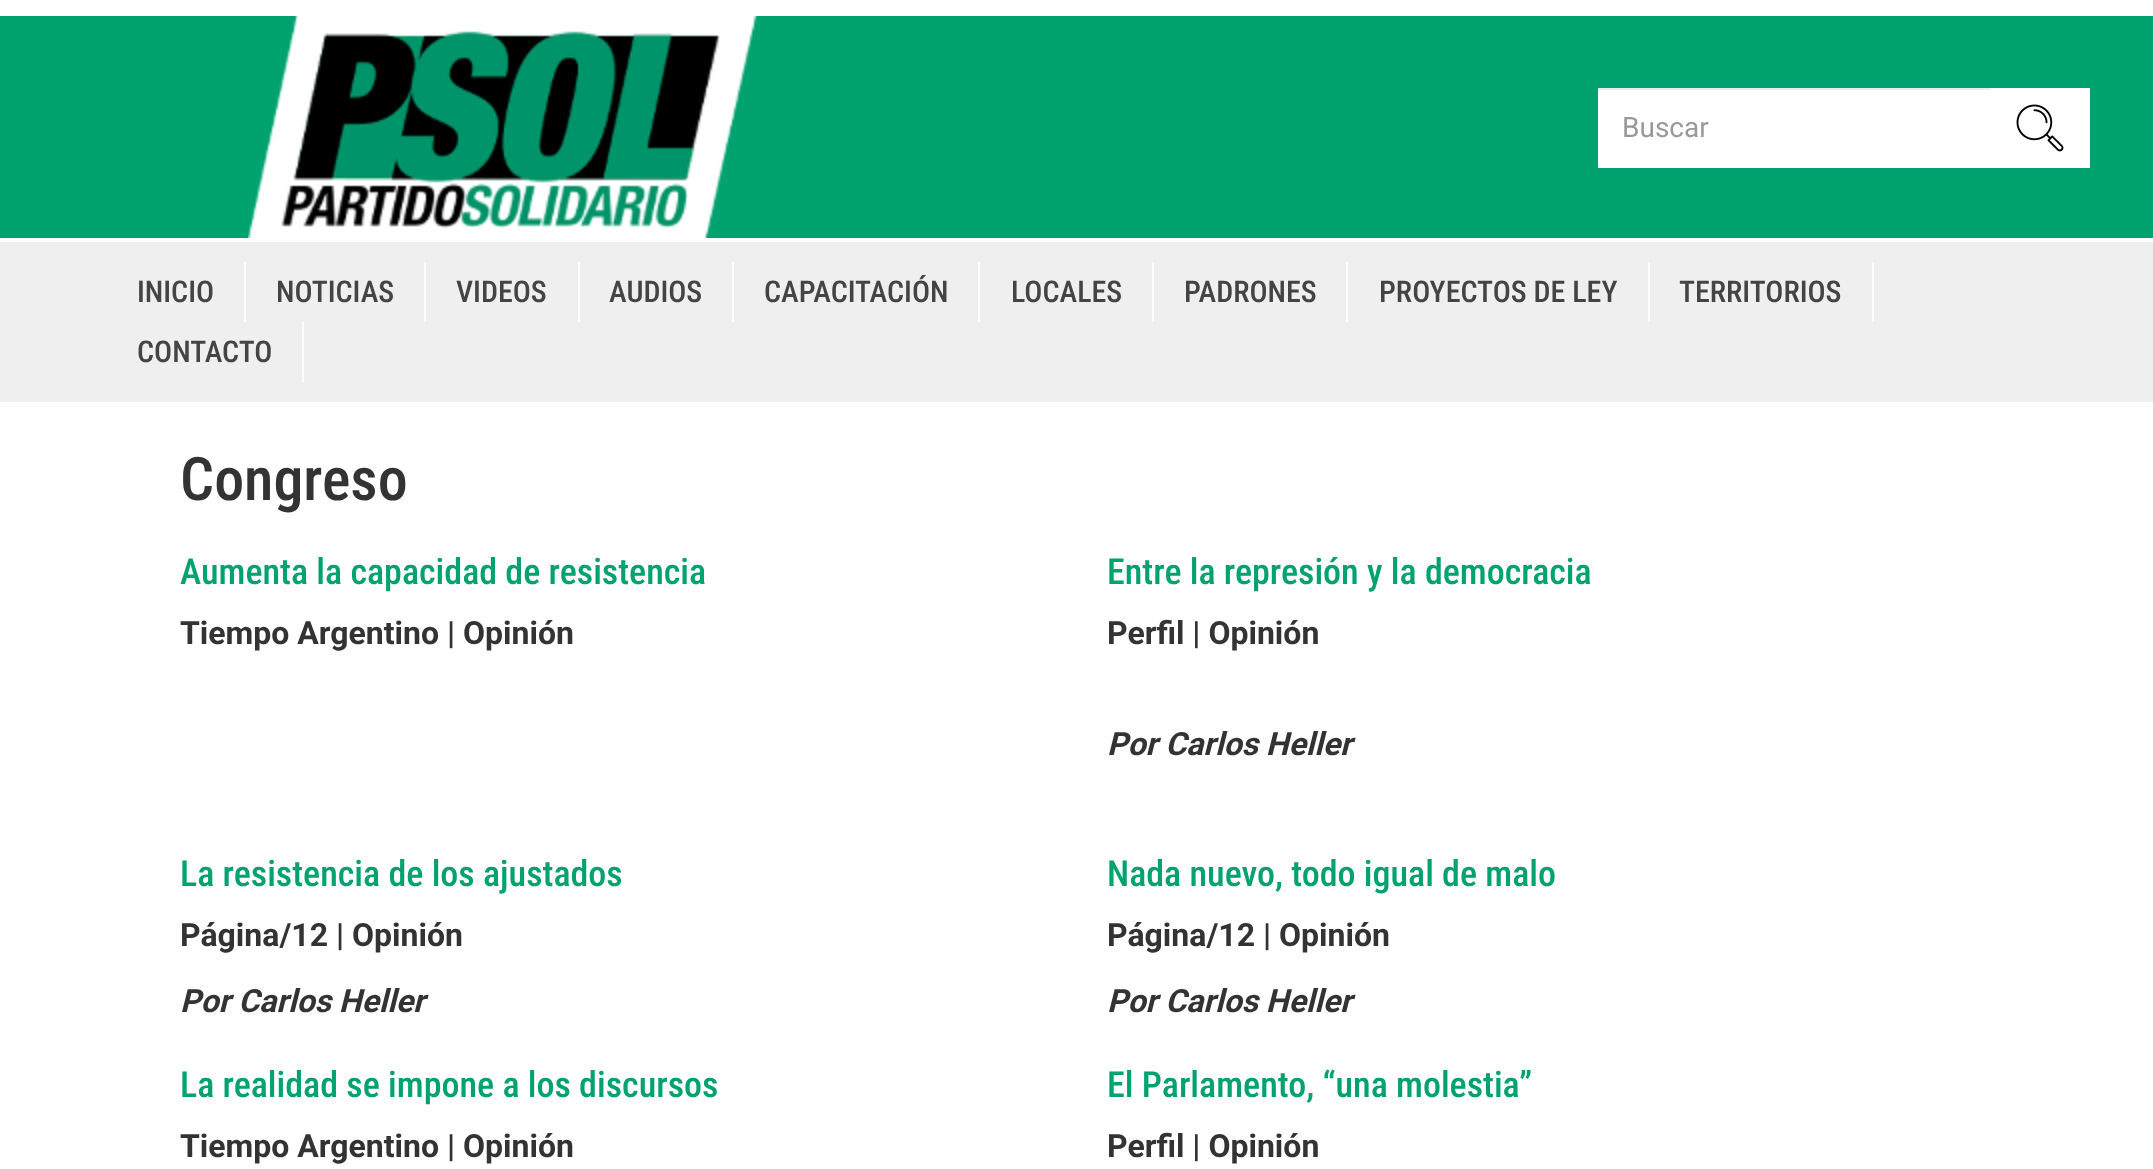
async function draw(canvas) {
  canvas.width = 2153;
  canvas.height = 1169;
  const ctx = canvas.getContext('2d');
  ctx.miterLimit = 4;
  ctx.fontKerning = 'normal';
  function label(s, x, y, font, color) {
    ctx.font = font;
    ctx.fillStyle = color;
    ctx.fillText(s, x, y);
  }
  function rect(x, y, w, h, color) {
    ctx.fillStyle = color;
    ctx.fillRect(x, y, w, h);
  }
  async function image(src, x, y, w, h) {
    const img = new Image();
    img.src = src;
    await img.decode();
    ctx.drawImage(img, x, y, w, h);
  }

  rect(0, 0, 2153, 1169, '#fff');
  rect(0, 16, 2153, 222, '#00a270');
  await image('assets/img1.png', 248, 16, 509, 222);
  rect(1598, 90, 392, 78, '#fff');
  rect(1598, 88, 394, 2, '#ececec');
  label('Buscar', 1622, 137, '28px Roboto', '#999');
  rect(1990, 88, 100, 80, '#fff');
  await image('assets/img2.png', 2016, 104, 48, 48);
  rect(0, 242, 2153, 160, '#efefef');
  rect(244, 262, 2, 60, '#fff');
  label('INICIO', 137, 302, '500 30px Roboto Condensed', '#444');
  rect(424, 262, 2, 60, '#fff');
  label('NOTICIAS', 276, 302, '500 30px Roboto Condensed', '#444');
  rect(578, 262, 2, 60, '#fff');
  label('VIDEOS', 456, 302, '500 30px Roboto Condensed', '#444');
  rect(732, 262, 2, 60, '#fff');
  label('AUDIOS', 609, 302, '500 30px Roboto Condensed', '#444');
  rect(978, 262, 2, 60, '#fff');
  label('CAPACITACIÓN', 764, 302, '500 30px Roboto Condensed', '#444');
  rect(1152, 262, 2, 60, '#fff');
  label('LOCALES', 1011, 302, '500 30px Roboto Condensed', '#444');
  rect(1346, 262, 2, 60, '#fff');
  label('PADRONES', 1184, 302, '500 30px Roboto Condensed', '#444');
  rect(1648, 262, 2, 60, '#fff');
  label('PROYECTOS DE LEY', 1379, 302, '500 30px Roboto Condensed', '#444');
  rect(1872, 262, 2, 60, '#fff');
  label('TERRITORIOS', 1679, 302, '500 30px Roboto Condensed', '#444');
  rect(302, 322, 2, 60, '#fff');
  label('CONTACTO', 137, 362, '500 30px Roboto Condensed', '#444');
  label('Congreso', 180, 500, '500 60px Roboto Condensed', '#333');
  label('Aumenta la capacidad de resistencia', 180, 584, '500 36px Roboto Condensed', '#00a270');
  label('Tiempo Argentino | Opinión', 180, 644, 'bold 32px Roboto', '#333');
  label('Entre la represión y la democracia', 1107, 584, '500 36px Roboto Condensed', '#00a270');
  label('Perfil | Opinión', 1107, 644, 'bold 32px Roboto', '#333');
  label('Por Carlos Heller', 1107, 755, 'italic bold 32px Roboto', '#333');
  label('La resistencia de los ajustados', 180, 886, '500 36px Roboto Condensed', '#00a270');
  label('Página/12 | Opinión', 180, 946, 'bold 32px Roboto', '#333');
  label('Por Carlos Heller', 180, 1012, 'italic bold 32px Roboto', '#333');
  label('Nada nuevo, todo igual de malo', 1107, 886, '500 36px Roboto Condensed', '#00a270');
  label('Página/12 | Opinión', 1107, 946, 'bold 32px Roboto', '#333');
  label('Por Carlos Heller', 1107, 1012, 'italic bold 32px Roboto', '#333');
  label('La realidad se impone a los discursos', 180, 1097, '500 36px Roboto Condensed', '#00a270');
  label('Tiempo Argentino | Opinión', 180, 1157, 'bold 32px Roboto', '#333');
  label('El Parlamento, “una molestia”', 1107, 1097, '500 36px Roboto Condensed', '#00a270');
  label('Perfil | Opinión', 1107, 1157, 'bold 32px Roboto', '#333');
}

draw(document.querySelector('canvas'));
